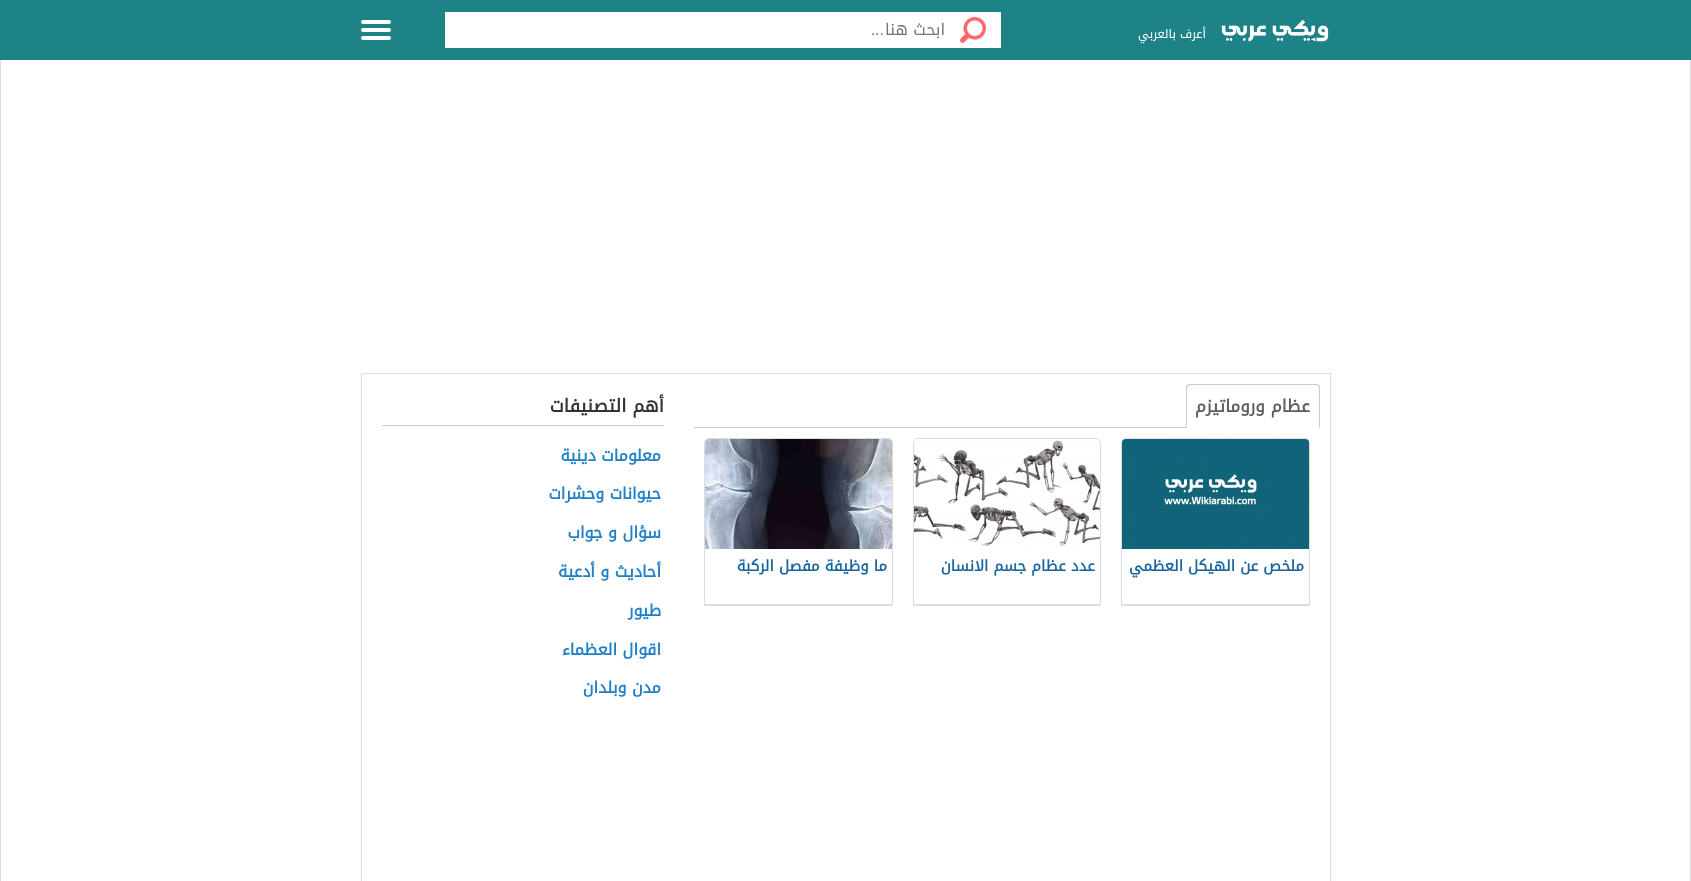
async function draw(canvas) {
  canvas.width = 1691;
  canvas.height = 881;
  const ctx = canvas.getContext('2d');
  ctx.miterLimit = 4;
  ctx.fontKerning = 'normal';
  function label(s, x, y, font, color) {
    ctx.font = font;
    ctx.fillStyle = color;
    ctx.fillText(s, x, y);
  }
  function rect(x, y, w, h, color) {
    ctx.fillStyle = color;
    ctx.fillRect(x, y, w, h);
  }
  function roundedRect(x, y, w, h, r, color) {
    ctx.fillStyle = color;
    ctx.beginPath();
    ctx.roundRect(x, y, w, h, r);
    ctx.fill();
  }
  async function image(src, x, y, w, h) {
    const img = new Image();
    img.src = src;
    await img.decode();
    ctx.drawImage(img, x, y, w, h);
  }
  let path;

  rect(0, 0, 1691, 881, '#fff');
  ctx.strokeStyle = '#ddd';
  ctx.strokeRect(0.5, 0.5, 1690, 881);
  rect(0, 0, 1691, 60, '#1d8387');
  await image('assets/img1.png', 1221, 19, 108, 23);
  ctx.direction = 'rtl';
  label('أعرف بالعربي', 1206, 38, '12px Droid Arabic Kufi', '#fff');
  rect(445, 12, 556, 36, '#fff');
  await image('assets/img2.png', 960, 17, 26, 26);
  label('ابحث هنا', 945, 35, '16px Droid Arabic Kufi', '#757575');
  label('...', 884, 35, '16px Liberation Sans', '#757575');
  roundedRect(361, 20, 30, 4, 2, '#fff');
  roundedRect(361, 28, 30, 4, 2, '#fff');
  roundedRect(361, 36, 30, 4, 2, '#fff');
  ctx.strokeRect(361.5, 373.5, 969, 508);
  ctx.fillStyle = '#ccc';
  path = new Path2D('M1191 384C1190 384 1188 384 1187 385L1188 386L1191 385H1315L1318 386L1319 385C1318 384 1316 384 1315 384Z');
  ctx.fill(path);
  rect(694, 427, 626, 1, '#ccc');
  path = new Path2D('M1320 428V389C1320 388 1320 386 1319 385L1318 386C1318 387 1319 388 1319 389V427Z');
  ctx.fill(path);
  ctx.fillStyle = '#fff';
  path = new Path2D('M1320 428L1319 427H1187L1186 428Z');
  ctx.fill(path);
  ctx.fillStyle = '#ccc';
  path = new Path2D('M1186 428L1187 427V389C1187 388 1188 387 1188 386L1187 385C1186 386 1186 388 1186 389Z');
  ctx.fill(path);
  label('عظام وروماتيزم', 1310, 412, 'bold 17px Droid Arabic Kufi', '#5e5e5e');
  ctx.beginPath();
  ctx.roundRect(1121.5, 438.5, 188, 167, [4.5, 4.5, 0, 0]);
  ctx.stroke();
  rect(1121, 604, 189, 1, '#ddd');
  await image('assets/img3.png', 1122, 439, 187, 110);
  label('ملخص عن الهيكل العظمي', 1304, 571, 'bold 15px Droid Arabic Kufi', '#1a659e');
  ctx.beginPath();
  ctx.roundRect(913.5, 438.5, 187, 167, [4.5, 4.5, 0, 0]);
  ctx.stroke();
  rect(913, 604, 188, 1, '#ddd');
  await image('assets/img4.png', 914, 440, 186, 107);
  label('عدد عظام جسم الانسان', 1095, 571, 'bold 15px Droid Arabic Kufi', '#1a659e');
  ctx.beginPath();
  ctx.roundRect(704.5, 438.5, 188, 167, [4.5, 4.5, 0, 0]);
  ctx.stroke();
  rect(704, 604, 189, 1, '#ddd');
  await image('assets/img5.png', 705, 439, 187, 110);
  label('ما وظيفة مفصل الركبة', 887, 571, 'bold 15px Droid Arabic Kufi', '#1a659e');
  rect(382, 425, 282, 1, '#ccc');
  label('أهم التصنيفات', 664, 412, 'bold 18px Droid Arabic Kufi', '#333');
  label('معلومات دينية', 661, 461, 'bold 16px Droid Arabic Kufi', '#2080c7');
  label('حيوانات وحشرات', 661, 499, 'bold 16px Droid Arabic Kufi', '#2080c7');
  label('سؤال و جواب', 661, 538, 'bold 16px Droid Arabic Kufi', '#2080c7');
  label('أحاديث و أدعية', 661, 577, 'bold 16px Droid Arabic Kufi', '#2080c7');
  label('طيور', 661, 616, 'bold 16px Droid Arabic Kufi', '#2080c7');
  label('اقوال العظماء', 661, 655, 'bold 16px Droid Arabic Kufi', '#2080c7');
  label('مدن وبلدان', 661, 693, 'bold 16px Droid Arabic Kufi', '#2080c7');
}

draw(document.querySelector('canvas'));
